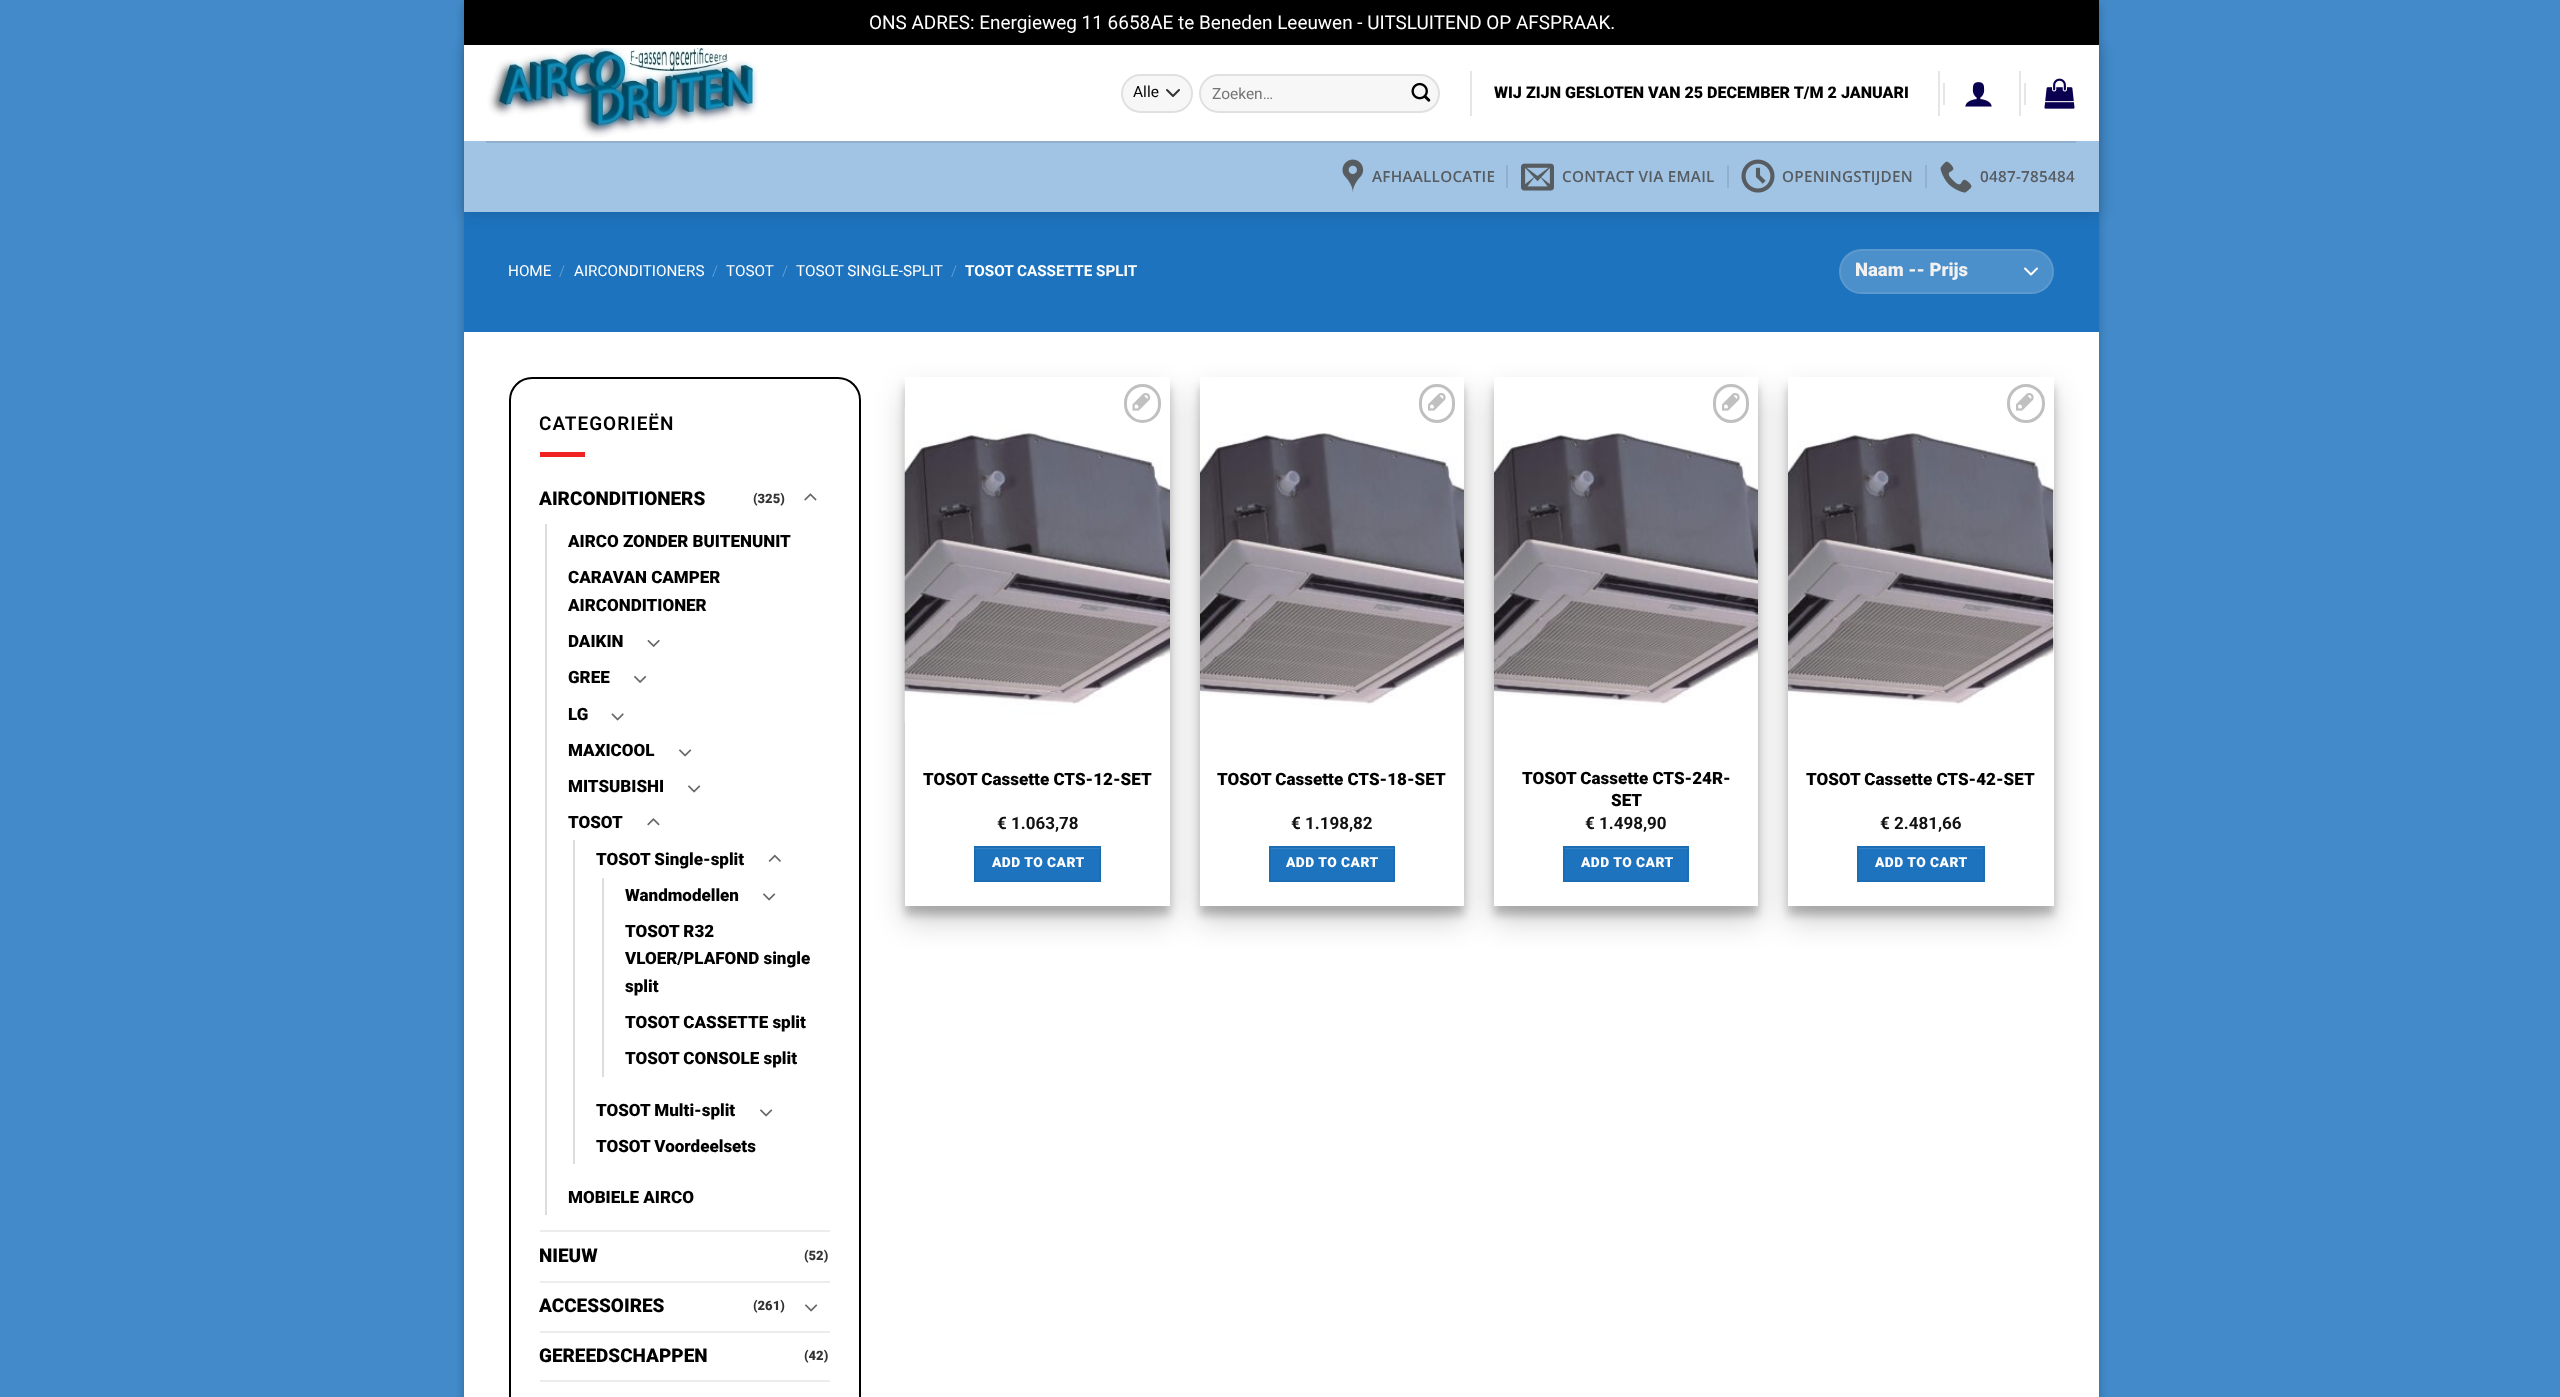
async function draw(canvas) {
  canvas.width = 2560;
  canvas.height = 1397;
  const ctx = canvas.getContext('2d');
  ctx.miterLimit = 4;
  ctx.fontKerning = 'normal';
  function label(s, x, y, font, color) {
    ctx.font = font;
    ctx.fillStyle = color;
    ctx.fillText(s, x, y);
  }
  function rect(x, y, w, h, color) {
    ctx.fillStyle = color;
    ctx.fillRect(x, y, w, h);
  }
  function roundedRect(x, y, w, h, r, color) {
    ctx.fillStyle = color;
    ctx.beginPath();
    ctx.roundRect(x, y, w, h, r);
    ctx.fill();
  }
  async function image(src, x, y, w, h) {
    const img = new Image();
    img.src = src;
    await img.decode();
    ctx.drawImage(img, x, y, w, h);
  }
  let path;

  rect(0, 0, 2560, 1397, '#428ac9');
  ctx.fillStyle = '#0000003b';
  ctx.filter = 'blur(4.5px)';
  ctx.beginPath();
  ctx.rect(464, 5, 1635, 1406);
  ctx.fill();
  ctx.filter = 'none';
  rect(464, 0, 1635, 45, '#000');
  label('ONS ADRES: Energieweg 11 6658AE te Beneden Leeuwen - UITSLUITEND OP AFSPRAAK.', 869, 29, '18.95px Roboto', '#fff');
  rect(464, 45, 1635, 1352, '#fff');
  rect(464, 212, 1635, 120, '#1e73be');
  ctx.save();
  path = new Path2D('M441 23H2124V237H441ZM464 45H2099V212H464Z');
  ctx.clip(path, 'evenodd');
  ctx.fillStyle = '#00000026';
  ctx.filter = 'blur(7.5px)';
  ctx.beginPath();
  ctx.rect(465, 47, 1635, 166);
  ctx.fill();
  ctx.filter = 'none';
  ctx.restore();
  await image('assets/img1.png', 487, 48, 271, 90);
  roundedRect(1121, 74, 72, 39, 19.5, '#f7f7f7');
  path = new Path2D('M1167 90L1173 96L1179 90');
  ctx.strokeStyle = '#333';
  ctx.lineWidth = 2;
  ctx.lineCap = 'round';
  ctx.lineJoin = 'round';
  ctx.stroke(path);
  ctx.beginPath();
  ctx.roundRect(1122, 75, 70, 37, 18.5);
  ctx.strokeStyle = '#00000017';
  ctx.lineJoin = 'miter';
  ctx.stroke();
  label('Alle', 1133, 97, '15.5px Roboto', '#000');
  roundedRect(1199, 74, 241, 39, 19.5, '#f7f7f7');
  ctx.beginPath();
  ctx.roundRect(1200, 75, 239, 37, 18.5);
  ctx.stroke();
  label('Zoeken…', 1212, 99, '15.5px Roboto', '#757575');
  await image('assets/img2.png', 1411, 82, 20, 20);
  rect(1470, 71, 2, 45, '#e6e6e6');
  label('WIJ ZIJN GESLOTEN VAN 25 DECEMBER T/M 2 JANUARI', 1494, 98, '900 16.1px Roboto', '#000');
  rect(1938, 71, 2, 45, '#e6e6e6');
  rect(1943, 83, 2, 22, '#e6e6e6');
  await image('assets/img3.png', 1965, 82, 27, 25);
  rect(2019, 71, 2, 45, '#e6e6e6');
  rect(2024, 83, 2, 22, '#e6e6e6');
  await image('assets/img4.png', 2044, 78, 31, 31);
  rect(464, 141, 1635, 71, '#a1c4e4');
  rect(486, 141, 1590, 2, '#91b0cd');
  rect(2098, 45, 1, 96, '#ffffffe6');
  await image('assets/img5.png', 1342, 159, 22, 34);
  ctx.letterSpacing = '0.25px';
  label('AFHAALLOCATIE', 1372, 182, '600 15.25px Open Sans', '#575c61');
  rect(1506, 165, 2, 23, '#91b0cd');
  await image('assets/img6.png', 1521, 163, 33, 28);
  label('CONTACT VIA EMAIL', 1562, 182, '600 15.25px Open Sans', '#575c61');
  rect(1727, 165, 2, 23, '#91b0cd');
  await image('assets/img7.png', 1741, 159, 34, 34);
  label('OPENINGSTIJDEN', 1782, 182, '600 15.25px Open Sans', '#575c61');
  rect(1925, 165, 2, 23, '#91b0cd');
  await image('assets/img8.png', 1940, 161, 32, 32);
  label('0487-785484', 1980, 182, '600 15.25px Open Sans', '#575c61');
  ctx.letterSpacing = '0px';
  label('HOME', 508, 276, '15.25px Roboto', '#fff');
  label('/', 559, 276, '300 15.25px Roboto', '#6da4d5');
  label('AIRCONDITIONERS', 574, 276, '15.25px Roboto', '#fff');
  label('/', 712, 276, '300 15.25px Roboto', '#6da4d5');
  label('TOSOT', 726, 276, '15.25px Roboto', '#fff');
  label('/', 782, 276, '300 15.25px Roboto', '#6da4d5');
  label('TOSOT SINGLE-SPLIT', 796, 276, '15.25px Roboto', '#fff');
  label('/', 951, 276, '300 15.25px Roboto', '#6da4d5');
  label('TOSOT CASSETTE SPLIT', 965, 276, 'bold 15.25px Roboto', '#fff');
  roundedRect(1839, 249, 215, 45, 22.5, '#4b8fcb');
  path = new Path2D('M2025 268.5L2031 274.5L2037 268.5');
  ctx.strokeStyle = '#fff';
  ctx.lineJoin = 'round';
  ctx.stroke(path);
  ctx.beginPath();
  ctx.roundRect(1840, 250, 213, 43, 21.5);
  ctx.strokeStyle = '#ffffff17';
  ctx.lineJoin = 'miter';
  ctx.stroke();
  label('Naam -- Prijs', 1855, 276, '900 18.5px Roboto', '#f1f1f1');
  ctx.beginPath();
  ctx.roundRect(510, 378, 350, 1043, 22);
  ctx.strokeStyle = '#000';
  ctx.stroke();
  ctx.letterSpacing = '1px';
  label('CATEGORIEËN', 539, 430, '600 18.95px Roboto', '#000');
  rect(540, 452, 45, 5, '#f02222');
  ctx.letterSpacing = '0px';
  label('AIRCONDITIONERS', 539, 505, '900 18.95px Roboto', '#000');
  label('(325)', 753, 503, '900 13px Roboto', '#333');
  await image('assets/img9.png', 804, 493, 13, 8);
  rect(545, 524, 2, 691, '#ddd');
  label('AIRCO ZONDER BUITENUNIT', 568, 547, '900 17px Roboto', '#000');
  label('CARAVAN CAMPER', 568, 583, '900 17px Roboto', '#000');
  label('AIRCONDITIONER', 568, 611, '900 17px Roboto', '#000');
  label('DAIKIN', 568, 647, '900 17px Roboto', '#000');
  await image('assets/img10.png', 647, 639, 13, 8);
  label('GREE', 568, 683, '900 17px Roboto', '#000');
  await image('assets/img11.png', 634, 675, 13, 8);
  label('LG', 568, 720, '900 17px Roboto', '#000');
  await image('assets/img12.png', 611, 713, 13, 8);
  label('MAXICOOL', 568, 756, '900 17px Roboto', '#000');
  await image('assets/img13.png', 679, 749, 13, 8);
  label('MITSUBISHI', 568, 792, '900 17px Roboto', '#000');
  await image('assets/img13.png', 688, 785, 13, 8);
  label('TOSOT', 568, 828, '900 17px Roboto', '#000');
  await image('assets/img14.png', 647, 818, 13, 8);
  rect(573, 840, 2, 324, '#ddd');
  label('TOSOT Single-split', 596, 865, '900 17px Roboto', '#000');
  await image('assets/img15.png', 768, 854, 13, 8);
  rect(602, 878, 2, 199, '#ddd');
  label('Wandmodellen', 625, 901, '900 17px Roboto', '#000');
  await image('assets/img13.png', 763, 893, 13, 8);
  label('TOSOT R32', 625, 937, '900 17px Roboto', '#000');
  label('VLOER/PLAFOND single', 625, 964, '900 17px Roboto', '#000');
  label('split', 625, 992, '900 17px Roboto', '#000');
  label('TOSOT CASSETTE split', 625, 1028, '900 17px Roboto', '#000');
  label('TOSOT CONSOLE split', 625, 1064, '900 17px Roboto', '#000');
  label('TOSOT Multi-split', 596, 1116, '900 17px Roboto', '#000');
  await image('assets/img13.png', 760, 1109, 13, 8);
  label('TOSOT Voordeelsets', 596, 1152, '900 17px Roboto', '#000');
  label('MOBIELE AIRCO', 568, 1203, '900 17px Roboto', '#000');
  rect(540, 1230, 290, 2, '#ececec');
  label('NIEUW', 539, 1262, '900 18.95px Roboto', '#000');
  label('(52)', 804, 1260, '900 13px Roboto', '#333');
  rect(540, 1281, 290, 2, '#ececec');
  label('ACCESSOIRES', 539, 1312, '900 18.95px Roboto', '#000');
  label('(261)', 753, 1310, '900 13px Roboto', '#333');
  await image('assets/img13.png', 805, 1304, 13, 8);
  rect(540, 1331, 290, 2, '#ececec');
  label('GEREEDSCHAPPEN', 539, 1362, '900 18.95px Roboto', '#000');
  label('(42)', 804, 1360, '900 13px Roboto', '#333');
  rect(540, 1380, 290, 2, '#ececec');
  ctx.save();
  path = new Path2D('M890 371H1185V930H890ZM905 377H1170V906H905Z');
  ctx.clip(path, 'evenodd');
  ctx.fillStyle = '#00000038';
  ctx.filter = 'blur(4.5px)';
  ctx.beginPath();
  ctx.rect(905, 386, 265, 529);
  ctx.fill();
  ctx.filter = 'none';
  ctx.restore();
  ctx.save();
  path = new Path2D('M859 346H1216V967H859ZM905 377H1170V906H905Z');
  ctx.clip(path, 'evenodd');
  ctx.fillStyle = '#00000030';
  ctx.filter = 'blur(15px)';
  ctx.beginPath();
  ctx.rect(905, 392, 265, 529);
  ctx.fill();
  ctx.filter = 'none';
  ctx.restore();
  await image('assets/img17.png', 904, 407, 266, 316);
  ctx.beginPath();
  ctx.roundRect(1125.5, 385.5, 34, 36, 17);
  ctx.strokeStyle = '#c0c0c0';
  ctx.lineWidth = 3;
  ctx.stroke();
  await image('assets/img16.png', 1132, 393, 19, 18);
  label('TOSOT Cassette CTS-12-SET', 923, 785, '900 17px Roboto', '#000');
  label('€ 1.063,78', 997, 829, 'bold 17px Roboto', '#111');
  ctx.fillStyle = '#1e73be';
  ctx.beginPath();
  ctx.rect(975, 847, 125, 34);
  ctx.fill();
  ctx.strokeStyle = '#1d6db5';
  ctx.lineWidth = 2;
  ctx.stroke();
  ctx.save();
  ctx.beginPath();
  ctx.rect(975, 848, 125, 33);
  ctx.clip();
  ctx.fillStyle = '#ffffff1a';
  path = new Path2D('M796 699H1280V1029H796ZM946 849H1132V882H946Z');
  ctx.fill(path, 'evenodd');
  ctx.restore();
  ctx.letterSpacing = '0.5px';
  label('ADD TO CART', 992, 867, '900 13.75px Roboto', '#fff');
  ctx.save();
  path = new Path2D('M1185 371H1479V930H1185ZM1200 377H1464V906H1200Z');
  ctx.clip(path, 'evenodd');
  ctx.fillStyle = '#00000038';
  ctx.filter = 'blur(4.5px)';
  ctx.beginPath();
  ctx.rect(1200, 386, 264, 529);
  ctx.fill();
  ctx.filter = 'none';
  ctx.restore();
  ctx.save();
  path = new Path2D('M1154 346H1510V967H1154ZM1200 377H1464V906H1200Z');
  ctx.clip(path, 'evenodd');
  ctx.fillStyle = '#00000030';
  ctx.filter = 'blur(15px)';
  ctx.beginPath();
  ctx.rect(1200, 392, 264, 529);
  ctx.fill();
  ctx.filter = 'none';
  ctx.restore();
  ctx.beginPath();
  ctx.roundRect(1420.5, 385.5, 33, 36, 16.5);
  ctx.strokeStyle = '#c0c0c0';
  ctx.lineWidth = 3;
  ctx.stroke();
  await image('assets/img18.png', 1428, 393, 18, 18);
  await image('assets/img19.png', 1200, 433, 264, 273);
  ctx.letterSpacing = '0px';
  label('TOSOT Cassette CTS-18-SET', 1217, 785, '900 17px Roboto', '#000');
  label('€ 1.198,82', 1291, 829, 'bold 17px Roboto', '#111');
  ctx.fillStyle = '#1e73be';
  ctx.beginPath();
  ctx.rect(1270, 847, 124, 34);
  ctx.fill();
  ctx.strokeStyle = '#1d6db5';
  ctx.lineWidth = 2;
  ctx.stroke();
  ctx.save();
  ctx.beginPath();
  ctx.rect(1271, 848, 123, 33);
  ctx.clip();
  ctx.fillStyle = '#ffffff1a';
  path = new Path2D('M1090 699H1574V1029H1090ZM1240 849H1426V882H1240Z');
  ctx.fill(path, 'evenodd');
  ctx.restore();
  ctx.letterSpacing = '0.5px';
  label('ADD TO CART', 1286, 867, '900 13.75px Roboto', '#fff');
  ctx.save();
  path = new Path2D('M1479 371H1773V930H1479ZM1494 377H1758V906H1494Z');
  ctx.clip(path, 'evenodd');
  ctx.fillStyle = '#00000038';
  ctx.filter = 'blur(4.5px)';
  ctx.beginPath();
  ctx.rect(1494, 386, 264, 529);
  ctx.fill();
  ctx.filter = 'none';
  ctx.restore();
  ctx.save();
  path = new Path2D('M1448 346H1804V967H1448ZM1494 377H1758V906H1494Z');
  ctx.clip(path, 'evenodd');
  ctx.fillStyle = '#00000030';
  ctx.filter = 'blur(15px)';
  ctx.beginPath();
  ctx.rect(1494, 392, 264, 529);
  ctx.fill();
  ctx.filter = 'none';
  ctx.restore();
  ctx.beginPath();
  ctx.roundRect(1714.5, 385.5, 33, 36, 16.5);
  ctx.strokeStyle = '#c0c0c0';
  ctx.lineWidth = 3;
  ctx.stroke();
  await image('assets/img18.png', 1722, 393, 18, 18);
  await image('assets/img19.png', 1494, 433, 264, 273);
  ctx.letterSpacing = '0px';
  label('TOSOT Cassette CTS-24R-', 1522, 784, '900 17px Roboto', '#000');
  label('SET', 1611, 806, '900 17px Roboto', '#000');
  label('€ 1.498,90', 1585, 829, 'bold 17px Roboto', '#111');
  ctx.fillStyle = '#1e73be';
  ctx.beginPath();
  ctx.rect(1564, 847, 124, 34);
  ctx.fill();
  ctx.strokeStyle = '#1d6db5';
  ctx.lineWidth = 2;
  ctx.stroke();
  ctx.save();
  ctx.beginPath();
  ctx.rect(1565, 848, 123, 33);
  ctx.clip();
  ctx.fillStyle = '#ffffff1a';
  path = new Path2D('M1384 699H1868V1029H1384ZM1534 849H1720V882H1534Z');
  ctx.fill(path, 'evenodd');
  ctx.restore();
  ctx.letterSpacing = '0.5px';
  label('ADD TO CART', 1581, 867, '900 13.75px Roboto', '#fff');
  ctx.fillStyle = '#00000038';
  ctx.filter = 'blur(4.5px)';
  ctx.beginPath();
  ctx.rect(1788, 386, 266, 529);
  ctx.fill();
  ctx.filter = 'none';
  ctx.fillStyle = '#00000030';
  ctx.filter = 'blur(15px)';
  ctx.beginPath();
  ctx.rect(1788, 392, 266, 529);
  ctx.fill();
  ctx.filter = 'none';
  rect(1788, 377, 266, 529, '#fff');
  ctx.beginPath();
  ctx.roundRect(2008.5, 385.5, 35, 36, 17.5);
  ctx.strokeStyle = '#c0c0c0';
  ctx.lineWidth = 3;
  ctx.stroke();
  await image('assets/img18.png', 2016, 393, 18, 18);
  await image('assets/img20.png', 1788, 433, 266, 273);
  ctx.letterSpacing = '0px';
  label('TOSOT Cassette CTS-42-SET', 1806, 785, '900 17px Roboto', '#000');
  label('€ 2.481,66', 1880, 829, 'bold 17px Roboto', '#111');
  rect(1859, 849, 124, 31, '#1e73be');
  ctx.strokeStyle = '#1d6db5';
  ctx.lineWidth = 2;
  ctx.strokeRect(1858, 847, 126, 34);
  ctx.save();
  ctx.beginPath();
  ctx.rect(1859, 848, 124, 33);
  ctx.clip();
  ctx.fillStyle = '#3581c5';
  path = new Path2D('M1678 699H2162V1029H1678ZM1828 849H2014V882H1828Z');
  ctx.fill(path, 'evenodd');
  ctx.restore();
  ctx.letterSpacing = '0.5px';
  label('ADD TO CART', 1875, 867, '900 13.75px Roboto', '#fff');
}

draw(document.querySelector('canvas'));
